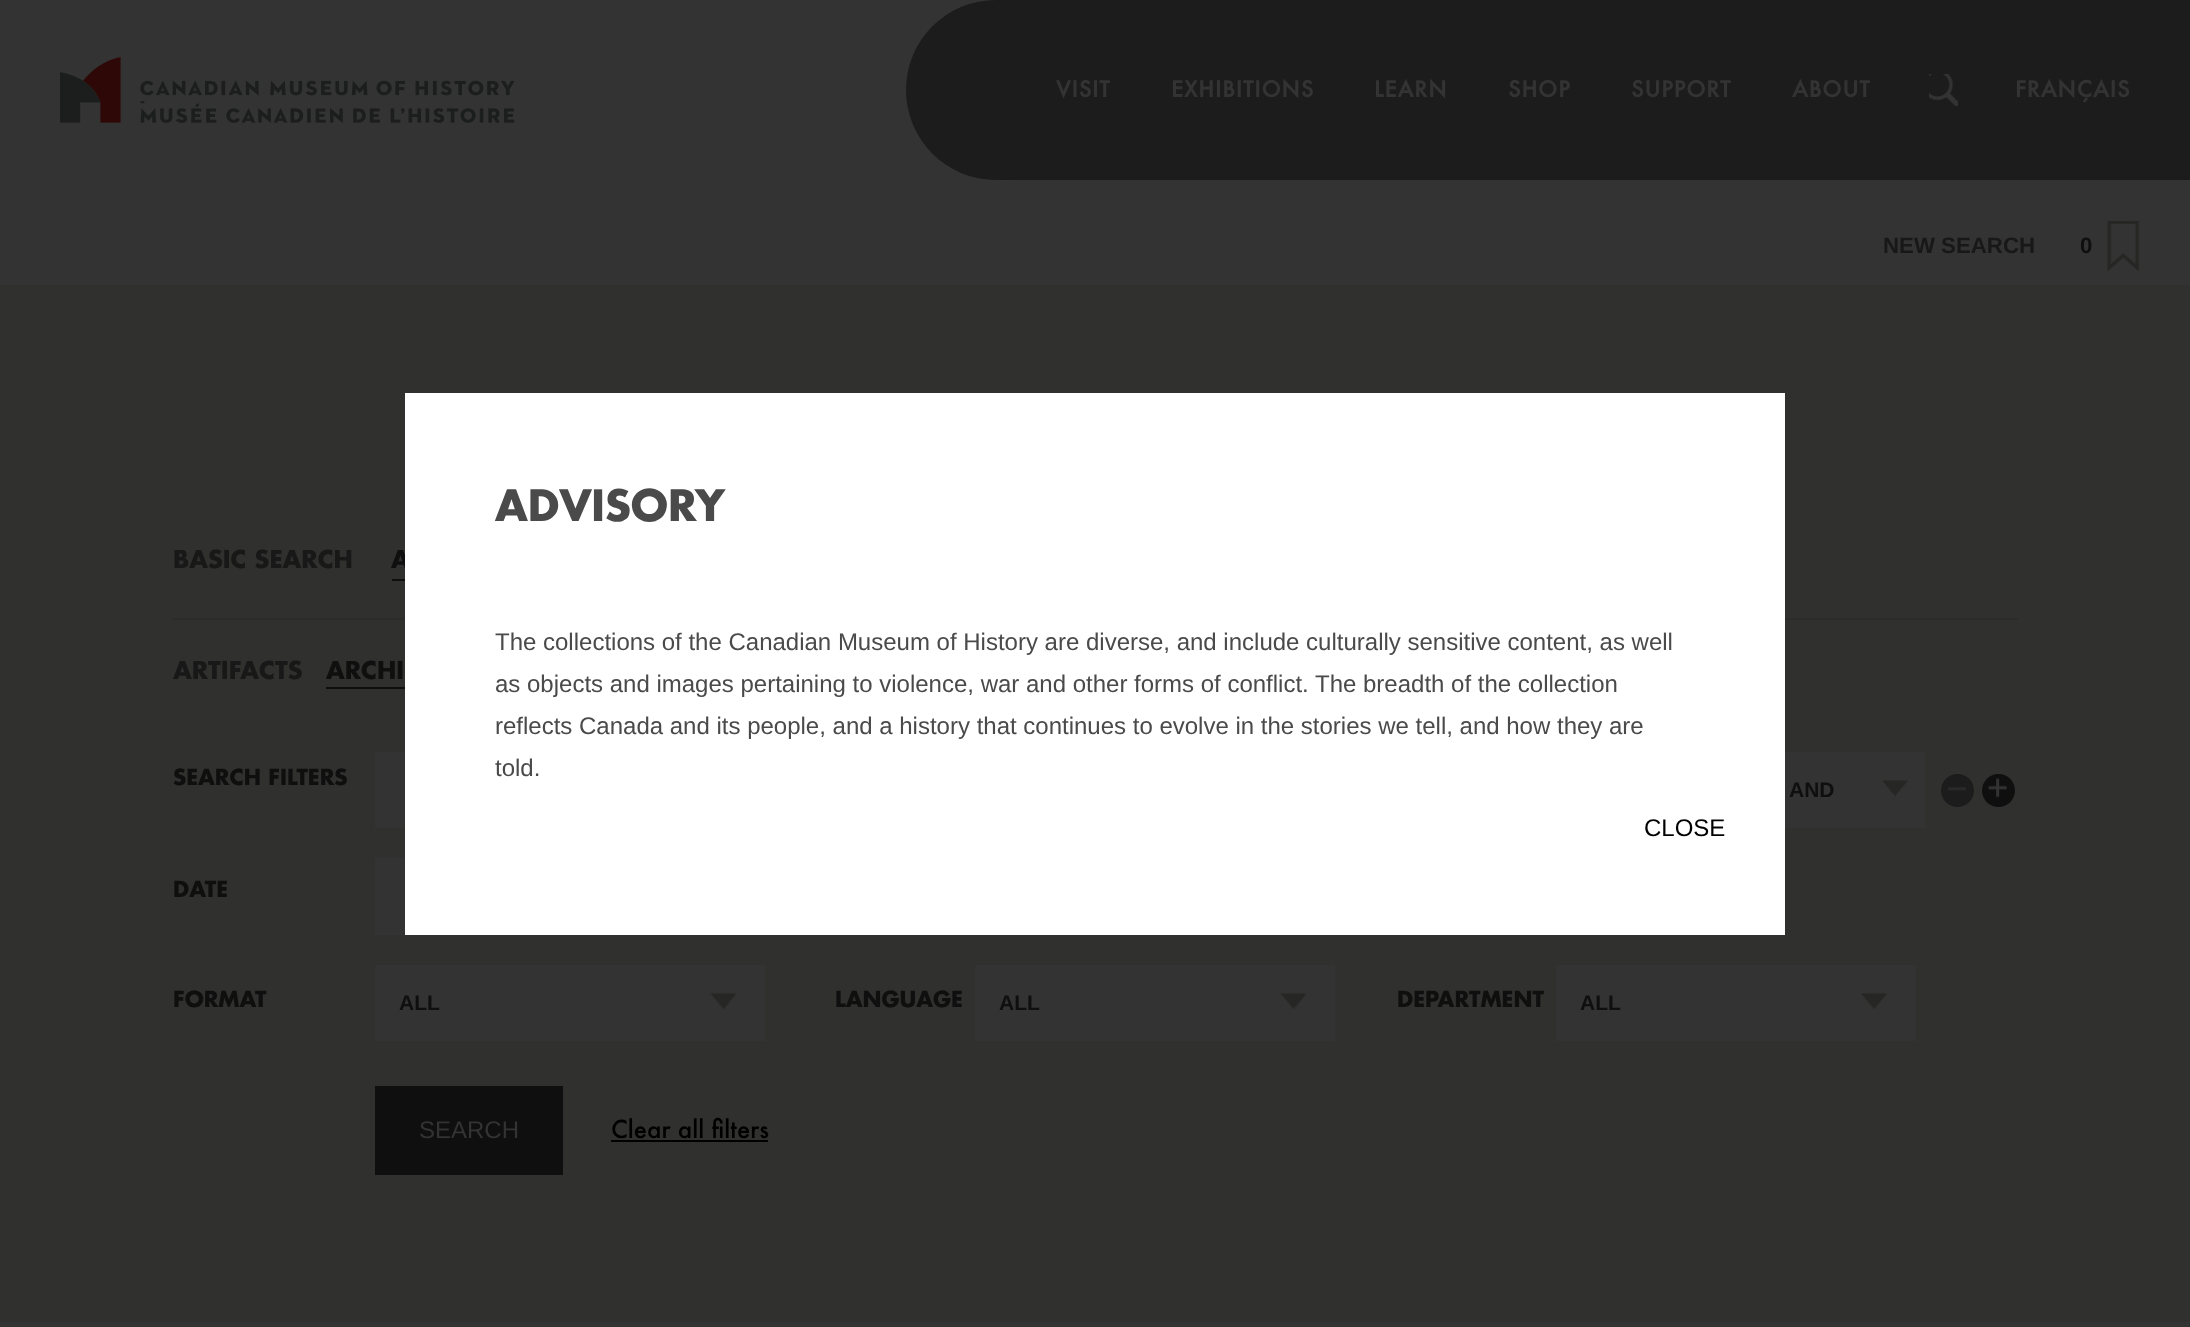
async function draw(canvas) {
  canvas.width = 2190;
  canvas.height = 1327;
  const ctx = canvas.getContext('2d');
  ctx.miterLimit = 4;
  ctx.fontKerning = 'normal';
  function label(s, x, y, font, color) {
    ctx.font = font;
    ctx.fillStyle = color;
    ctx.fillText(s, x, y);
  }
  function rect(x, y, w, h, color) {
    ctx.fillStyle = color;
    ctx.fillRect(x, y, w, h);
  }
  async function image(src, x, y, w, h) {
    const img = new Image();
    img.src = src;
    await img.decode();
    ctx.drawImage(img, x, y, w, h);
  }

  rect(0, 0, 2190, 1327, '#30302f');
  rect(0, 0, 995, 180, '#333');
  await image('assets/img1.png', 60, 57, 455, 66);
  rect(997, 0, 1193, 180, '#1c1c1c');
  ctx.beginPath();
  ctx.arc(996, 90, 90, 0, 2 * Math.PI);
  ctx.fill();
  ctx.letterSpacing = '0.9px';
  label('EXHIBITIONS', 1171, 97, 'bold 21.5px "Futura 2"', '#333');
  label('LEARN', 1374, 97, 'bold 21.5px "Futura 2"', '#333');
  label('ABOUT', 1792, 97, 'bold 21.5px "Futura 2"', '#333');
  await image('assets/img2.png', 1929, 74, 29, 32);
  label('FRANÇAIS', 2015, 97, 'bold 21.5px "Futura 2"', '#333');
  label('VISIT', 1056, 97, 'bold 21.5px "Futura 2"', '#333');
  label('SHOP', 1508, 97, 'bold 21.5px "Futura 2"', '#333');
  label('SUPPORT', 1631, 97, 'bold 21.5px "Futura 2"', '#333');
  rect(0, 180, 2190, 105, '#333');
  ctx.letterSpacing = '0px';
  label('NEW SEARCH', 1883, 253, 'bold 22.25px Liberation Sans', '#181818');
  label('0', 2080, 253, 'bold 22.25px Liberation Sans', '#0f0f0f');
  await image('assets/img3.png', 2107, 221, 33, 50);
  label('BASIC SEARCH', 173, 568, 'bold 24px Futura', '#181818');
  label('A', 391, 568, 'bold 24px Futura', '#0f0f0f');
  rect(392, 579, 13, 2, '#0f0f0f');
  rect(173, 618, 1845, 2, '#2c2c2b');
  label('ARTIFACTS', 173, 679, 'bold 24px Futura', '#181818');
  label('ARCHI', 326, 679, 'bold 24px Futura', '#0f0f0f');
  rect(326, 687, 79, 2, '#0f0f0f');
  label('SEARCH FILTERS', 173, 785, 'bold 21.5px Futura', '#0f0f0f');
  rect(375, 752, 30, 76, '#333');
  rect(1785, 752, 140, 76, '#333');
  label('AND', 1789, 797, 'bold 21px Liberation Sans', '#0f0f0f');
  await image('assets/img4.png', 1882, 780, 26, 17);
  ctx.fillStyle = '#1c1c1c';
  ctx.beginPath();
  ctx.arc(1957.5, 790.5, 16.5, 0, 2 * Math.PI);
  ctx.fill();
  await image('assets/img5.png', 1948, 786, 19, 5);
  ctx.fillStyle = '#0f0f0f';
  ctx.beginPath();
  ctx.arc(1998.5, 790.5, 16.5, 0, 2 * Math.PI);
  ctx.fill();
  await image('assets/img6.png', 1988, 778, 19, 20);
  label('DATE', 173, 897, 'bold 21.5px Futura', '#0f0f0f');
  rect(375, 858, 30, 77, '#333');
  label('FORMAT', 173, 1007, 'bold 21.5px Futura', '#0f0f0f');
  rect(375, 965, 390, 76, '#333');
  label('ALL', 399, 1010, 'bold 21px Liberation Sans', '#0f0f0f');
  await image('assets/img7.png', 710, 993, 27, 17);
  label('LANGUAGE', 835, 1007, 'bold 21.5px Futura', '#0f0f0f');
  rect(975, 965, 360, 76, '#333');
  label('ALL', 999, 1010, 'bold 21px Liberation Sans', '#0f0f0f');
  await image('assets/img7.png', 1280, 993, 27, 17);
  label('DEPARTMENT', 1397, 1007, 'bold 21.5px Futura', '#0f0f0f');
  rect(1556, 965, 360, 76, '#333');
  label('ALL', 1580, 1010, 'bold 21px Liberation Sans', '#0f0f0f');
  await image('assets/img8.png', 1861, 993, 26, 16);
  rect(375, 1086, 188, 89, '#0f0f0f');
  label('SEARCH', 419, 1138, '24px Liberation Sans', '#333');
  label('Clear all filters', 611, 1138, '500 24px Futura', '#000');
  rect(611, 1140, 157, 2, '#000');
  rect(0, 1322, 2190, 5, '#333');
  rect(405, 393, 1380, 542, '#fff');
  label('ADVISORY', 495, 521, 'bold 42px Futura', '#4a4a4a');
  label('The collections of the Canadian Museum of History are diverse, and include culturally sensitive content, as well', 495, 650, '24px Liberation Sans', '#4a4a4a');
  label('as objects and images pertaining to violence, war and other forms of conflict. The breadth of the collection', 495, 692, '24px Liberation Sans', '#4a4a4a');
  label('reflects Canada and its people, and a history that continues to evolve in the stories we tell, and how they are', 495, 734, '24px Liberation Sans', '#4a4a4a');
  label('told.', 495, 776, '24px Liberation Sans', '#4a4a4a');
  label('CLOSE', 1644, 836, '24px Liberation Sans', '#000');
}

draw(document.querySelector('canvas'));
